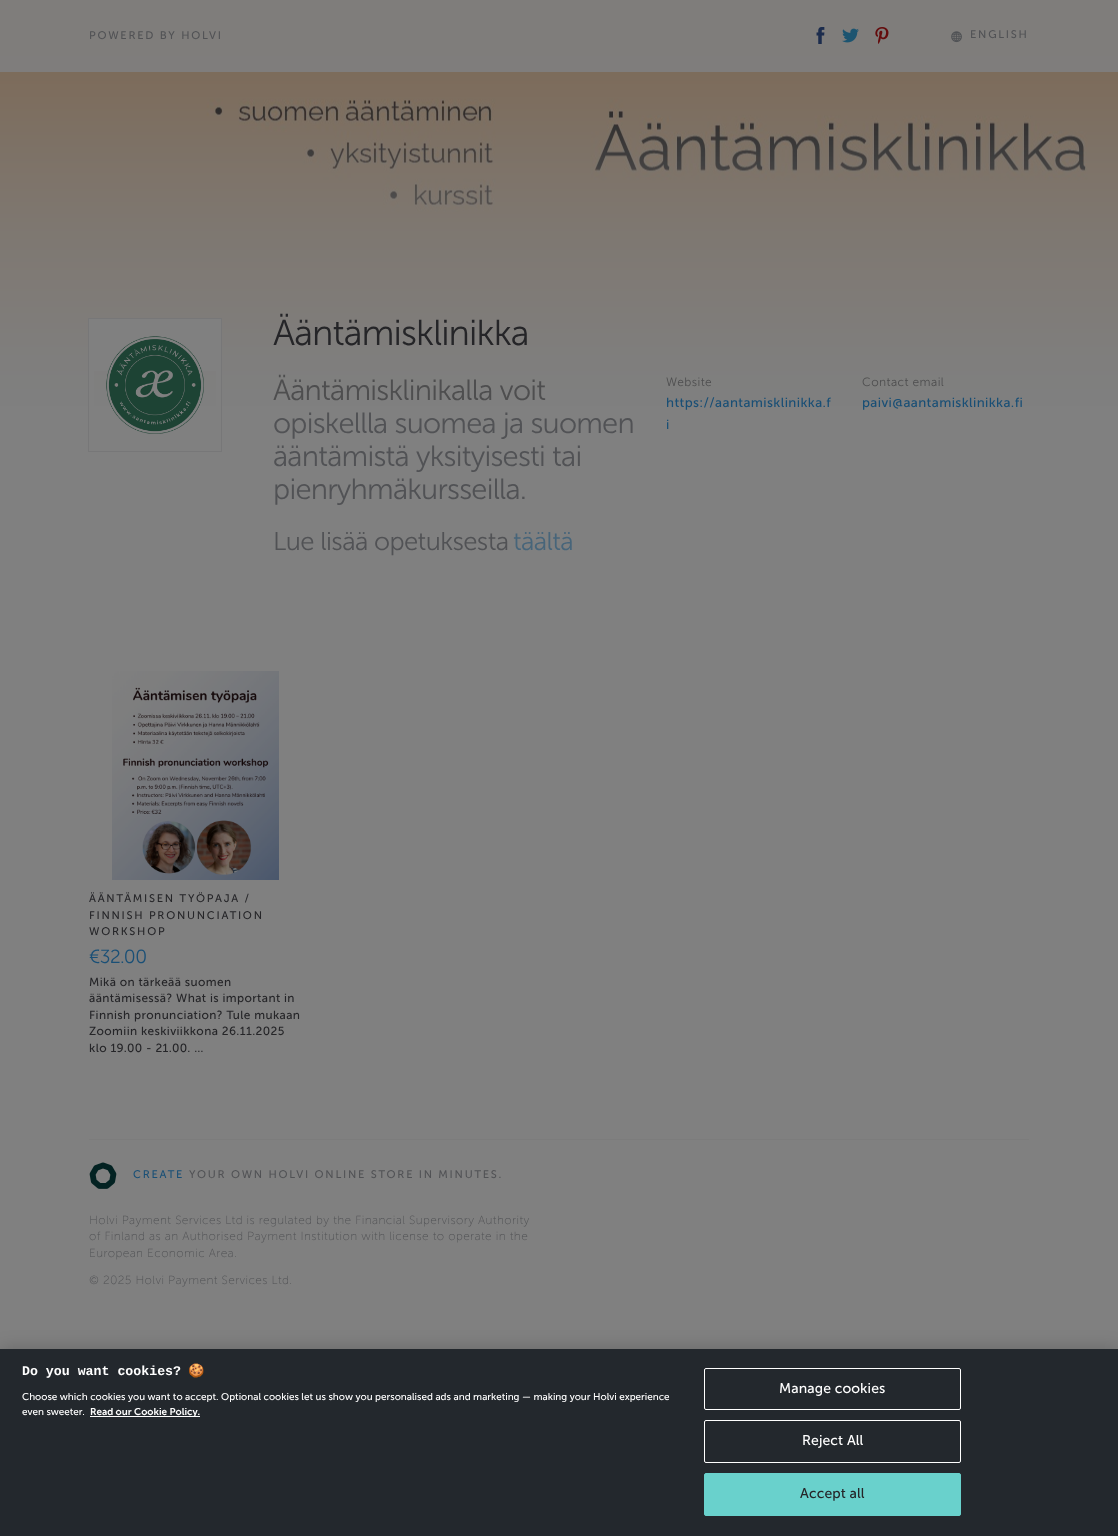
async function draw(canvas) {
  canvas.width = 1118;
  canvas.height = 1536;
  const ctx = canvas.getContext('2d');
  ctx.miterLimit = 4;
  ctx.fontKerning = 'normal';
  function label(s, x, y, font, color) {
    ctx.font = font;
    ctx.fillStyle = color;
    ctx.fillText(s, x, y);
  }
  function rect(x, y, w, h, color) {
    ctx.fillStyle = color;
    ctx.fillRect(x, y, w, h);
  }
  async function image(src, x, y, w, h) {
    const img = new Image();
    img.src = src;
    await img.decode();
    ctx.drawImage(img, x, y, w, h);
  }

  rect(0, 0, 1118, 1536, '#808080');
  await image('assets/img1.png', 0, 0, 1118, 407);
  rect(0, 0, 1118, 72, '#808080e6');
  ctx.letterSpacing = '1.75px';
  label('POWERED BY HOLVI', 89, 39, '11px Museo Sans', '#515255');
  await image('assets/img2.png', 816, 27, 9, 17);
  await image('assets/img3.png', 842, 28, 17, 15);
  await image('assets/img4.png', 875, 27, 14, 17);
  await image('assets/img5.png', 951, 31, 11, 12);
  label('ENGLISH', 970, 38, '11px Museo Sans', '#515255');
  ctx.strokeStyle = '#777778';
  ctx.strokeRect(88.5, 318.5, 133, 133);
  rect(94, 324, 122, 47, '#808080');
  await image('assets/img6.png', 106, 336, 98, 98);
  ctx.strokeStyle = '#808080';
  ctx.lineWidth = 5;
  ctx.strokeRect(91.5, 321.5, 127, 127);
  ctx.letterSpacing = '-0.9px';
  label('Ääntämisklinikka', 273, 345, '300 36px Museo Sans', '#252528');
  ctx.letterSpacing = '-0.75px';
  label('Ääntämisklinikalla voit', 273, 400, '300 29.1px Museo Sans', '#4e4e4f');
  label('opiskellla suomea ja suomen', 273, 433, '300 29.1px Museo Sans', '#515255');
  label('ääntämistä yksityisesti tai', 273, 466, '300 29.1px Museo Sans', '#515255');
  label('pienryhmäkursseilla.', 273, 499, '300 29.1px Museo Sans', '#515255');
  ctx.letterSpacing = '-0.6px';
  label('Lue lisää opetuksesta', 273, 550, '300 25.75px Museo Sans', '#515255');
  label('täältä', 513, 550, '300 25.75px Museo Sans', '#47657a');
  ctx.letterSpacing = '0.4px';
  label('Website', 666, 386, '300 12px Museo Sans', '#4e4e4f');
  label('https://aantamisklinikka.f', 666, 407, '13.25px Museo Sans', '#194f76');
  label('i', 666, 429, '13.25px Museo Sans', '#194f76');
  label('Contact email', 862, 386, '300 12px Museo Sans', '#4e4e4f');
  label('paivi@aantamisklinikka.fi', 862, 407, '13.25px Museo Sans', '#194f76');
  await image('assets/img7.png', 112, 671, 167, 209);
  ctx.letterSpacing = '1.75px';
  label('ÄÄNTÄMISEN TYÖPAJA /', 89, 902, '11px Museo Sans', '#252528');
  label('FINNISH PRONUNCIATION', 89, 919, '11px Museo Sans', '#252528');
  label('WORKSHOP', 89, 935, '11px Museo Sans', '#252528');
  ctx.letterSpacing = '-0.5px';
  label('€32.00', 89, 963, '300 19px Museo Sans', '#194f76');
  ctx.letterSpacing = '0.4px';
  label('Mikä on tärkeää suomen', 89, 986, '11.85px Museo Sans', '#252528');
  label('ääntämisessä? What is important in', 89, 1002, '11.85px Museo Sans', '#252528');
  label('Finnish pronunciation? Tule mukaan', 89, 1019, '11.85px Museo Sans', '#252528');
  label('Zoomiin keskiviikkona 26.11.2025', 89, 1035, '11.85px Museo Sans', '#252528');
  label('klo 19.00 - 21.00. …', 89, 1052, '11.85px Museo Sans', '#252528');
  rect(89, 1139, 940, 1, '#7c7c7c');
  await image('assets/img8.png', 89, 1162, 28, 27);
  ctx.letterSpacing = '1.75px';
  label('CREATE', 133, 1178, '11px Museo Sans', '#194f76');
  label('YOUR OWN HOLVI ONLINE STORE IN MINUTES.', 189, 1178, '11px Museo Sans', '#515255');
  ctx.letterSpacing = '0.4px';
  label('Holvi Payment Services Ltd is regulated by the Financial Supervisory Authority', 89, 1224, '200 11.85px Museo Sans', '#515255');
  label('of Finland as an Authorised Payment Institution with license to operate in the', 89, 1240, '200 11.85px Museo Sans', '#515255');
  label('European Economic Area.', 89, 1257, '200 11.85px Museo Sans', '#515255');
  label('© 2025 Holvi Payment Services Ltd.', 89, 1284, '200 11.85px Museo Sans', '#515255');
  ctx.fillStyle = '#00000033';
  ctx.filter = 'blur(9px)';
  ctx.beginPath();
  ctx.rect(0, 1349, 1118, 187);
  ctx.fill();
  ctx.filter = 'none';
  rect(0, 1349, 1118, 187, '#23282d');
  ctx.letterSpacing = '0px';
  label('Do you want cookies?', 22, 1375, 'bold 13.25px Liberation Mono', '#fff');
  label('🍪', 188, 1375, 'bold 13.25px Noto Color Emoji', '#fff');
  label('Choose which cookies you want to accept. Optional cookies let us show you personalised ads and marketing — making your Holvi experience', 22, 1400, '9.9px Museo Sans', '#fff');
  label('even sweeter.', 22, 1415, '9.9px Museo Sans', '#fff');
  rect(90, 1416, 110, 1, '#fff');
  label('Read our Cookie Policy.', 90, 1415, '600 9.9px Museo Sans', '#fff');
  ctx.beginPath();
  ctx.roundRect(704.5, 1368.5, 256, 41, 1.5);
  ctx.strokeStyle = '#fff';
  ctx.lineWidth = 1;
  ctx.stroke();
  ctx.letterSpacing = '0.1px';
  label('Manage cookies', 779, 1393, '14px Museo Sans', '#fff');
  ctx.beginPath();
  ctx.roundRect(704.5, 1420.5, 256, 42, 1.5);
  ctx.stroke();
  label('Reject All', 802, 1445, '14px Museo Sans', '#fff');
  ctx.fillStyle = '#69d1cc';
  ctx.beginPath();
  ctx.roundRect(704.5, 1473.5, 256, 42, 1.5);
  ctx.fill();
  ctx.strokeStyle = '#69d1cc';
  ctx.stroke();
  label('Accept all', 800, 1498, '14px Museo Sans', '#252528');
}

draw(document.querySelector('canvas'));
